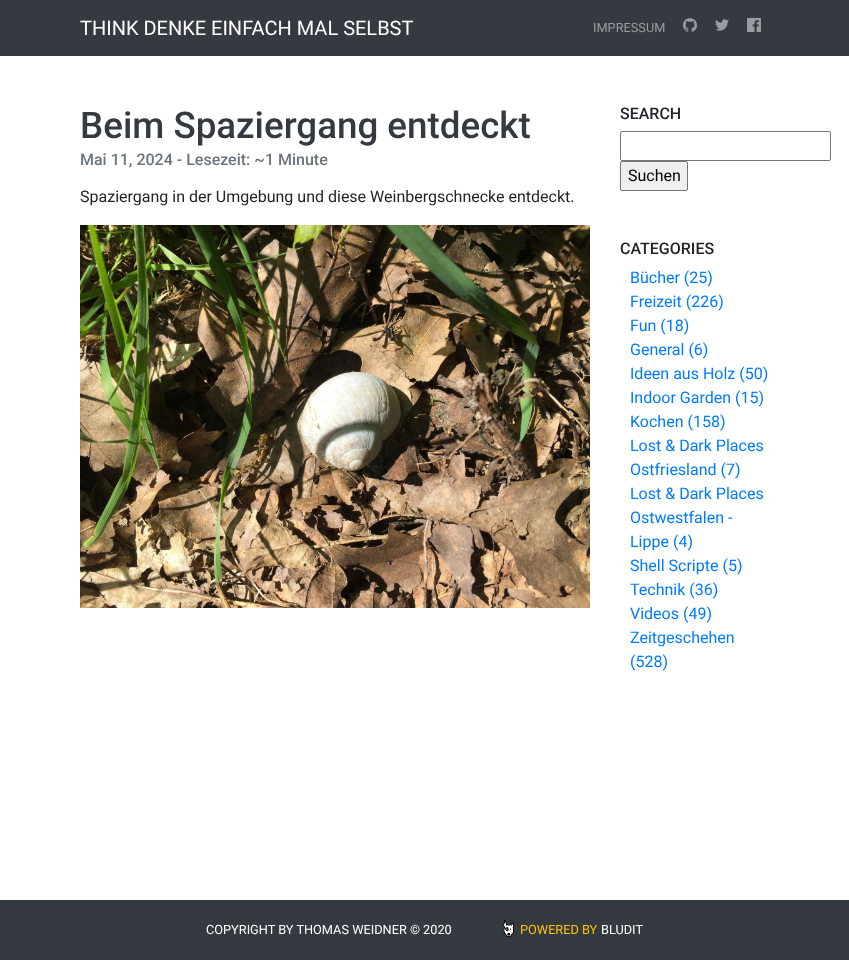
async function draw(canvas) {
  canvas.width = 849;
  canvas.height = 960;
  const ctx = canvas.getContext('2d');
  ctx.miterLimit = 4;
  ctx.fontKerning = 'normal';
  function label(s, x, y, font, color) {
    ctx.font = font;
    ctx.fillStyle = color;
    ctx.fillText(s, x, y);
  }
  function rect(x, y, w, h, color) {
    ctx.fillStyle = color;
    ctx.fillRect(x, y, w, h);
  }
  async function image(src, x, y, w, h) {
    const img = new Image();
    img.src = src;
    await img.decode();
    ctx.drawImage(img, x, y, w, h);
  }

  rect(0, 0, 849, 960, '#fff');
  rect(0, 0, 849, 56, '#343a40');
  label('THINK DENKE EINFACH MAL SELBST', 80, 35, '20px Roboto', '#fff');
  label('IMPRESSUM', 593, 32, '12.75px Roboto', '#9a9da0');
  await image('assets/img1.png', 683, 18, 14, 14);
  await image('assets/img2.png', 715, 19, 14, 12);
  await image('assets/img3.png', 747, 18, 14, 14);
  label('Beim Spaziergang entdeckt', 80, 138, '500 36.75px Roboto', '#343a40');
  label('Mai 11, 2024 - Lesezeit: ~1 Minute', 80, 165, '500 16px Roboto', '#6c757d');
  label('Spaziergang in der Umgebung und diese Weinbergschnecke entdeckt.', 80, 202, '16px Roboto', '#212529');
  await image('assets/img4.png', 80, 225, 510, 383);
  label('SEARCH', 620, 119, '500 16px Roboto', '#212529');
  ctx.beginPath();
  ctx.roundRect(620.5, 131.5, 210, 29, 1.5);
  ctx.strokeStyle = '#767676';
  ctx.stroke();
  ctx.fillStyle = '#efefef';
  ctx.beginPath();
  ctx.roundRect(620.5, 161.5, 67, 29, 1.5);
  ctx.fill();
  ctx.stroke();
  label('Suchen', 628, 181, '16px Roboto', '#000');
  label('CATEGORIES', 620, 254, '500 16px Roboto', '#212529');
  label('Bücher (25)', 630, 283, '16px Roboto', '#007bff');
  label('Freizeit (226)', 630, 307, '16px Roboto', '#007bff');
  label('Fun (18)', 630, 331, '16px Roboto', '#007bff');
  label('General (6)', 630, 355, '16px Roboto', '#007bff');
  label('Ideen aus Holz (50)', 630, 379, '16px Roboto', '#007bff');
  label('Indoor Garden (15)', 630, 403, '16px Roboto', '#007bff');
  label('Kochen (158)', 630, 427, '16px Roboto', '#007bff');
  label('Lost & Dark Places', 630, 451, '16px Roboto', '#007bff');
  label('Ostfriesland (7)', 630, 475, '16px Roboto', '#007bff');
  label('Lost & Dark Places', 630, 499, '16px Roboto', '#007bff');
  label('Ostwestfalen -', 630, 523, '16px Roboto', '#007bff');
  label('Lippe (4)', 630, 547, '16px Roboto', '#007bff');
  label('Shell Scripte (5)', 630, 571, '16px Roboto', '#007bff');
  label('Technik (36)', 630, 595, '16px Roboto', '#007bff');
  label('Videos (49)', 630, 619, '16px Roboto', '#007bff');
  label('Zeitgeschehen', 630, 643, '16px Roboto', '#007bff');
  label('(528)', 630, 667, '16px Roboto', '#007bff');
  rect(0, 900, 849, 60, '#343a40');
  label('COPYRIGHT BY THOMAS WEIDNER © 2020', 206, 934, '12.75px Roboto', '#fff');
  await image('assets/img5.png', 503, 920, 12, 17);
  label('POWERED BY', 520, 934, '12.75px Roboto', '#ffc107');
  label('BLUDIT', 601, 934, '12.75px Roboto', '#fff');
}

draw(document.querySelector('canvas'));
